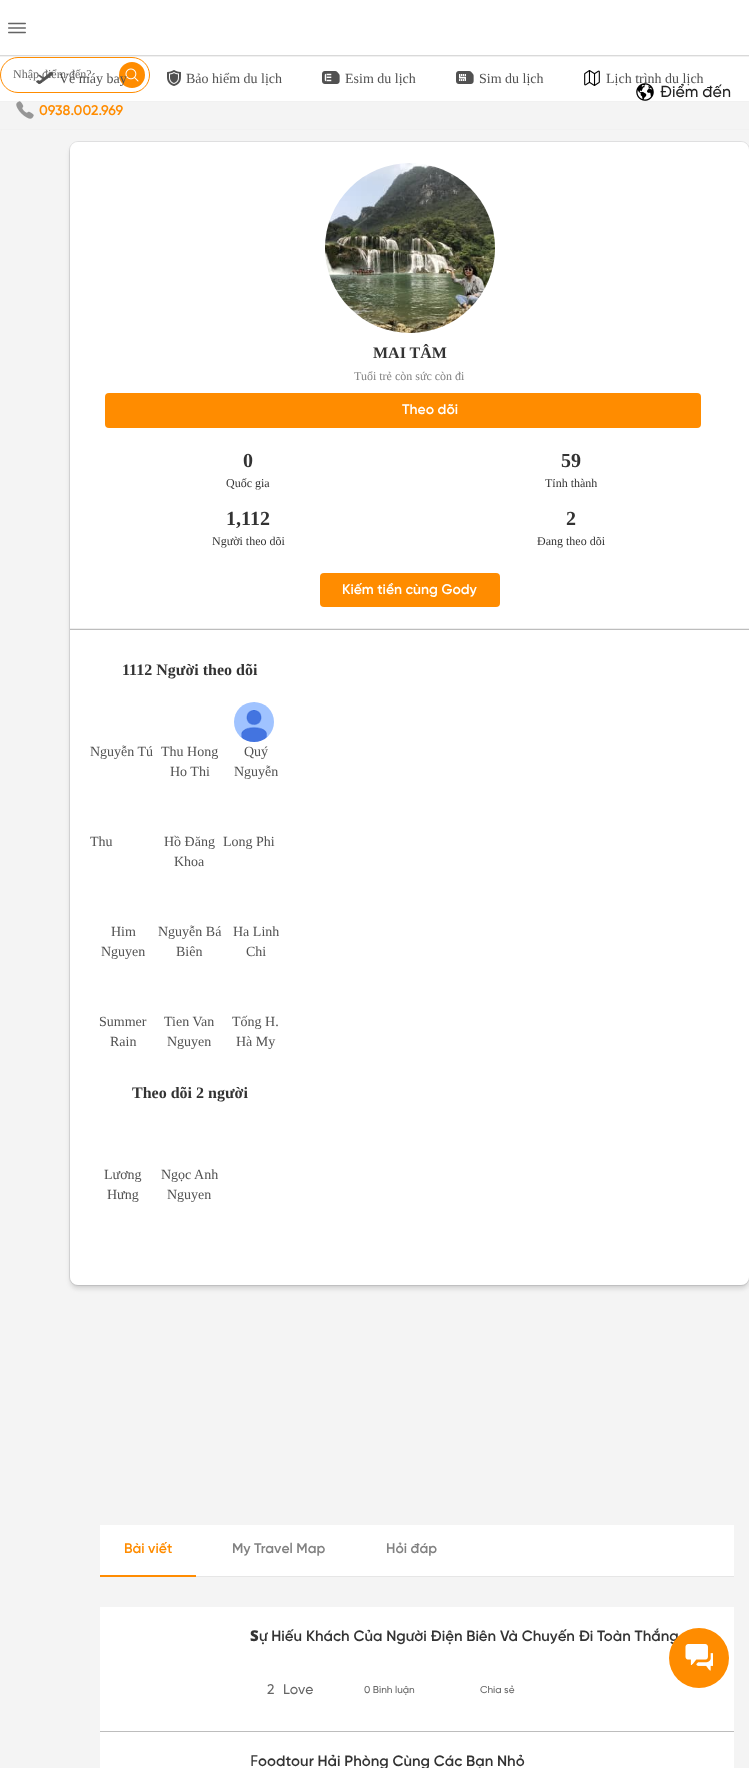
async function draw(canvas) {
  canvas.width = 749;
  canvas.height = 1768;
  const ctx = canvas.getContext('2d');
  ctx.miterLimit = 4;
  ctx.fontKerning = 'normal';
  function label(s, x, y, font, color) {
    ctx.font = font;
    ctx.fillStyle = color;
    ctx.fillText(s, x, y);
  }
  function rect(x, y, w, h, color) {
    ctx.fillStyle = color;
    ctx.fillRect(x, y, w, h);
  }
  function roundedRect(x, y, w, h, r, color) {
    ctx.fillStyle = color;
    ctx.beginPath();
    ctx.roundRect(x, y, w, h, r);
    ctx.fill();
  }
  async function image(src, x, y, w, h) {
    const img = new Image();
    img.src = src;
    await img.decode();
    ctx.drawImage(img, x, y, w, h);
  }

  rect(0, 0, 749, 1768, '#f4f4f4');
  rect(0, 0, 749, 55, '#fff');
  rect(0, 55, 749, 1, '#d9d9d9');
  rect(0, 129, 749, 1, '#f1f1f1');
  await image('assets/img1.png', 8, 22, 18, 12);
  rect(0, 57, 749, 44, '#fff');
  ctx.beginPath();
  ctx.roundRect(0.5, 57.5, 149, 35, 17.5);
  ctx.strokeStyle = '#ff8c00';
  ctx.stroke();
  label('Nhập điểm đến?', 13, 78, '12px Liberation Serif', '#666');
  ctx.fillStyle = '#ff8c00';
  ctx.beginPath();
  ctx.arc(132, 75, 13, 0, 2 * Math.PI);
  ctx.fill();
  await image('assets/img2.png', 125, 68, 14, 14);
  rect(0, 101, 749, 1, '#f1f1f1');
  await image('assets/img3.png', 16, 101, 18, 18);
  label('0938.002.969', 39, 115, '600 14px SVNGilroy', '#ff8c00');
  await image('assets/img4.png', 636, 83, 18, 18);
  label('Điểm đến', 660, 97, '500 16px SVNGilroy', '#222');
  rect(0, 56, 749, 1, '#f1f1f1');
  await image('assets/img5.png', 36, 71, 18, 14);
  label('Vé máy bay', 59, 83, '14px Liberation Serif', '#515151');
  await image('assets/img6.png', 167, 70, 14, 16);
  label('Bảo hiểm du lịch', 186, 83, '14px Liberation Serif', '#515151');
  await image('assets/img7.png', 322, 71, 18, 13);
  label('Esim du lịch', 345, 83, '14px Liberation Serif', '#515151');
  await image('assets/img8.png', 456, 71, 18, 13);
  label('Sim du lịch', 479, 83, '14px Liberation Serif', '#515151');
  await image('assets/img9.png', 584, 70, 16, 16);
  label('Lịch trình du lịch', 606, 83, '14px Liberation Serif', '#515151');
  ctx.fillStyle = '#66666633';
  ctx.filter = 'blur(2px)';
  ctx.beginPath();
  ctx.roundRect(70, 146, 679, 1143, 8);
  ctx.fill();
  ctx.filter = 'none';
  ctx.beginPath();
  ctx.roundRect(69.5, 141.5, 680, 1144, 8.5);
  ctx.strokeStyle = '#3f3f441a';
  ctx.stroke();
  ctx.fillStyle = '#0000000d';
  ctx.filter = 'blur(1px)';
  ctx.beginPath();
  ctx.roundRect(70, 143, 679, 1143, 8);
  ctx.fill();
  ctx.filter = 'none';
  roundedRect(70, 142, 679, 1143, 8, '#fff');
  await image('assets/img10.png', 325, 163, 170, 170);
  label('MAI TÂM', 373, 358, 'bold 16px Liberation Serif', '#333');
  label('Tuổi trẻ còn sức còn đi', 354, 380, '12px Liberation Serif', '#828282');
  roundedRect(105, 393, 596, 35, 4, '#ff8c00');
  label('Theo dõi', 402, 414, '600 14px SVNGilroy', '#fff');
  label('0', 243, 467, 'bold 20px Liberation Serif', '#333');
  label('Quốc gia', 226, 487, '12px Liberation Serif', '#333');
  label('59', 561, 467, 'bold 20px Liberation Serif', '#333');
  label('Tỉnh thành', 545, 487, '12px Liberation Serif', '#333');
  label('1,112', 226, 525, 'bold 20px Liberation Serif', '#333');
  label('Người theo dõi', 212, 545, '12px Liberation Serif', '#333');
  label('2', 566, 525, 'bold 20px Liberation Serif', '#333');
  label('Đang theo dõi', 537, 545, '12px Liberation Serif', '#333');
  roundedRect(320, 573, 180, 34, 4, '#ff8c00');
  label('Kiếm tiền cùng Gody', 342, 594, '600 14px SVNGilroy', '#fff');
  rect(70, 628, 679, 1, '#eee');
  rect(70, 629, 679, 1, '#bdbdbd');
  label('1112 Người theo dõi', 122, 675, 'bold 16px Liberation Serif', '#333');
  label('Nguyễn Tú', 90, 756, '14px Liberation Serif', '#515151');
  label('Thu Hong', 161, 756, '14px Liberation Serif', '#515151');
  label('Ho Thi', 170, 776, '14px Liberation Serif', '#515151');
  await image('assets/img11.png', 234, 702, 40, 40);
  label('Quý', 244, 756, '14px Liberation Serif', '#515151');
  label('Nguyễn', 234, 776, '14px Liberation Serif', '#515151');
  label('Thu', 90, 846, '14px Liberation Serif', '#515151');
  label('Hồ Đăng', 164, 846, '14px Liberation Serif', '#515151');
  label('Khoa', 174, 866, '14px Liberation Serif', '#515151');
  label('Long Phi', 223, 846, '14px Liberation Serif', '#515151');
  label('Him', 111, 936, '14px Liberation Serif', '#515151');
  label('Nguyen', 101, 956, '14px Liberation Serif', '#515151');
  label('Nguyễn Bá', 158, 936, '14px Liberation Serif', '#515151');
  label('Biên', 176, 956, '14px Liberation Serif', '#515151');
  label('Ha Linh', 233, 936, '14px Liberation Serif', '#515151');
  label('Chi', 246, 956, '14px Liberation Serif', '#515151');
  label('Summer', 99, 1026, '14px Liberation Serif', '#515151');
  label('Rain', 110, 1046, '14px Liberation Serif', '#515151');
  label('Tien Van', 164, 1026, '14px Liberation Serif', '#515151');
  label('Nguyen', 167, 1046, '14px Liberation Serif', '#515151');
  label('Tống H.', 232, 1026, '14px Liberation Serif', '#515151');
  label('Hà My', 236, 1046, '14px Liberation Serif', '#515151');
  label('Theo dõi 2 người', 132, 1098, 'bold 16px Liberation Serif', '#333');
  label('Lương', 104, 1179, '14px Liberation Serif', '#515151');
  label('Hưng', 107, 1199, '14px Liberation Serif', '#515151');
  label('Ngọc Anh', 161, 1179, '14px Liberation Serif', '#515151');
  label('Nguyen', 167, 1199, '14px Liberation Serif', '#515151');
  rect(100, 1525, 634, 51, '#fff');
  rect(196, 1576, 538, 1, '#e6e6e6');
  rect(100, 1575, 96, 2, '#ff8c01');
  label('Bài viết', 124, 1553, '600 14px SVNGilroy', '#ff8c00');
  label('My Travel Map', 232, 1553, '600 14px SVNGilroy', '#828282');
  label('Hỏi đáp', 386, 1553, '600 14px SVNGilroy', '#828282');
  rect(100, 1607, 634, 161, '#fff');
  rect(100, 1731, 634, 1, '#bdbdbd');
  label('S', 250, 1641, '900 15px Noto Sans', '#333');
  label('ự Hiếu Khách Của Người Điện Biên Và Chuyến Đi Toàn Thắng', 259, 1641, '600 15px SVNGilroy', '#333');
  label('2', 267, 1694, '500 14px SVNGilroy', '#666');
  label('Love', 283, 1694, '500 14px SVNGilroy', '#666');
  label('0 Bình luận', 364, 1693, '500 10px SVNGilroy', '#666');
  label('Chia sẻ', 480, 1693, '500 10px SVNGilroy', '#666');
  label('F', 250, 1766, '15px Noto Sans', '#333');
  label('oodtour Hải Phòng Cùng Các Bạn Nhỏ', 258, 1766, '600 15px SVNGilroy', '#333');
  ctx.fillStyle = '#ff8c00';
  ctx.beginPath();
  ctx.arc(699, 1658, 30, 0, 2 * Math.PI);
  ctx.fill();
  await image('assets/img12.png', 685, 1644, 28, 27);
}

draw(document.querySelector('canvas'));
